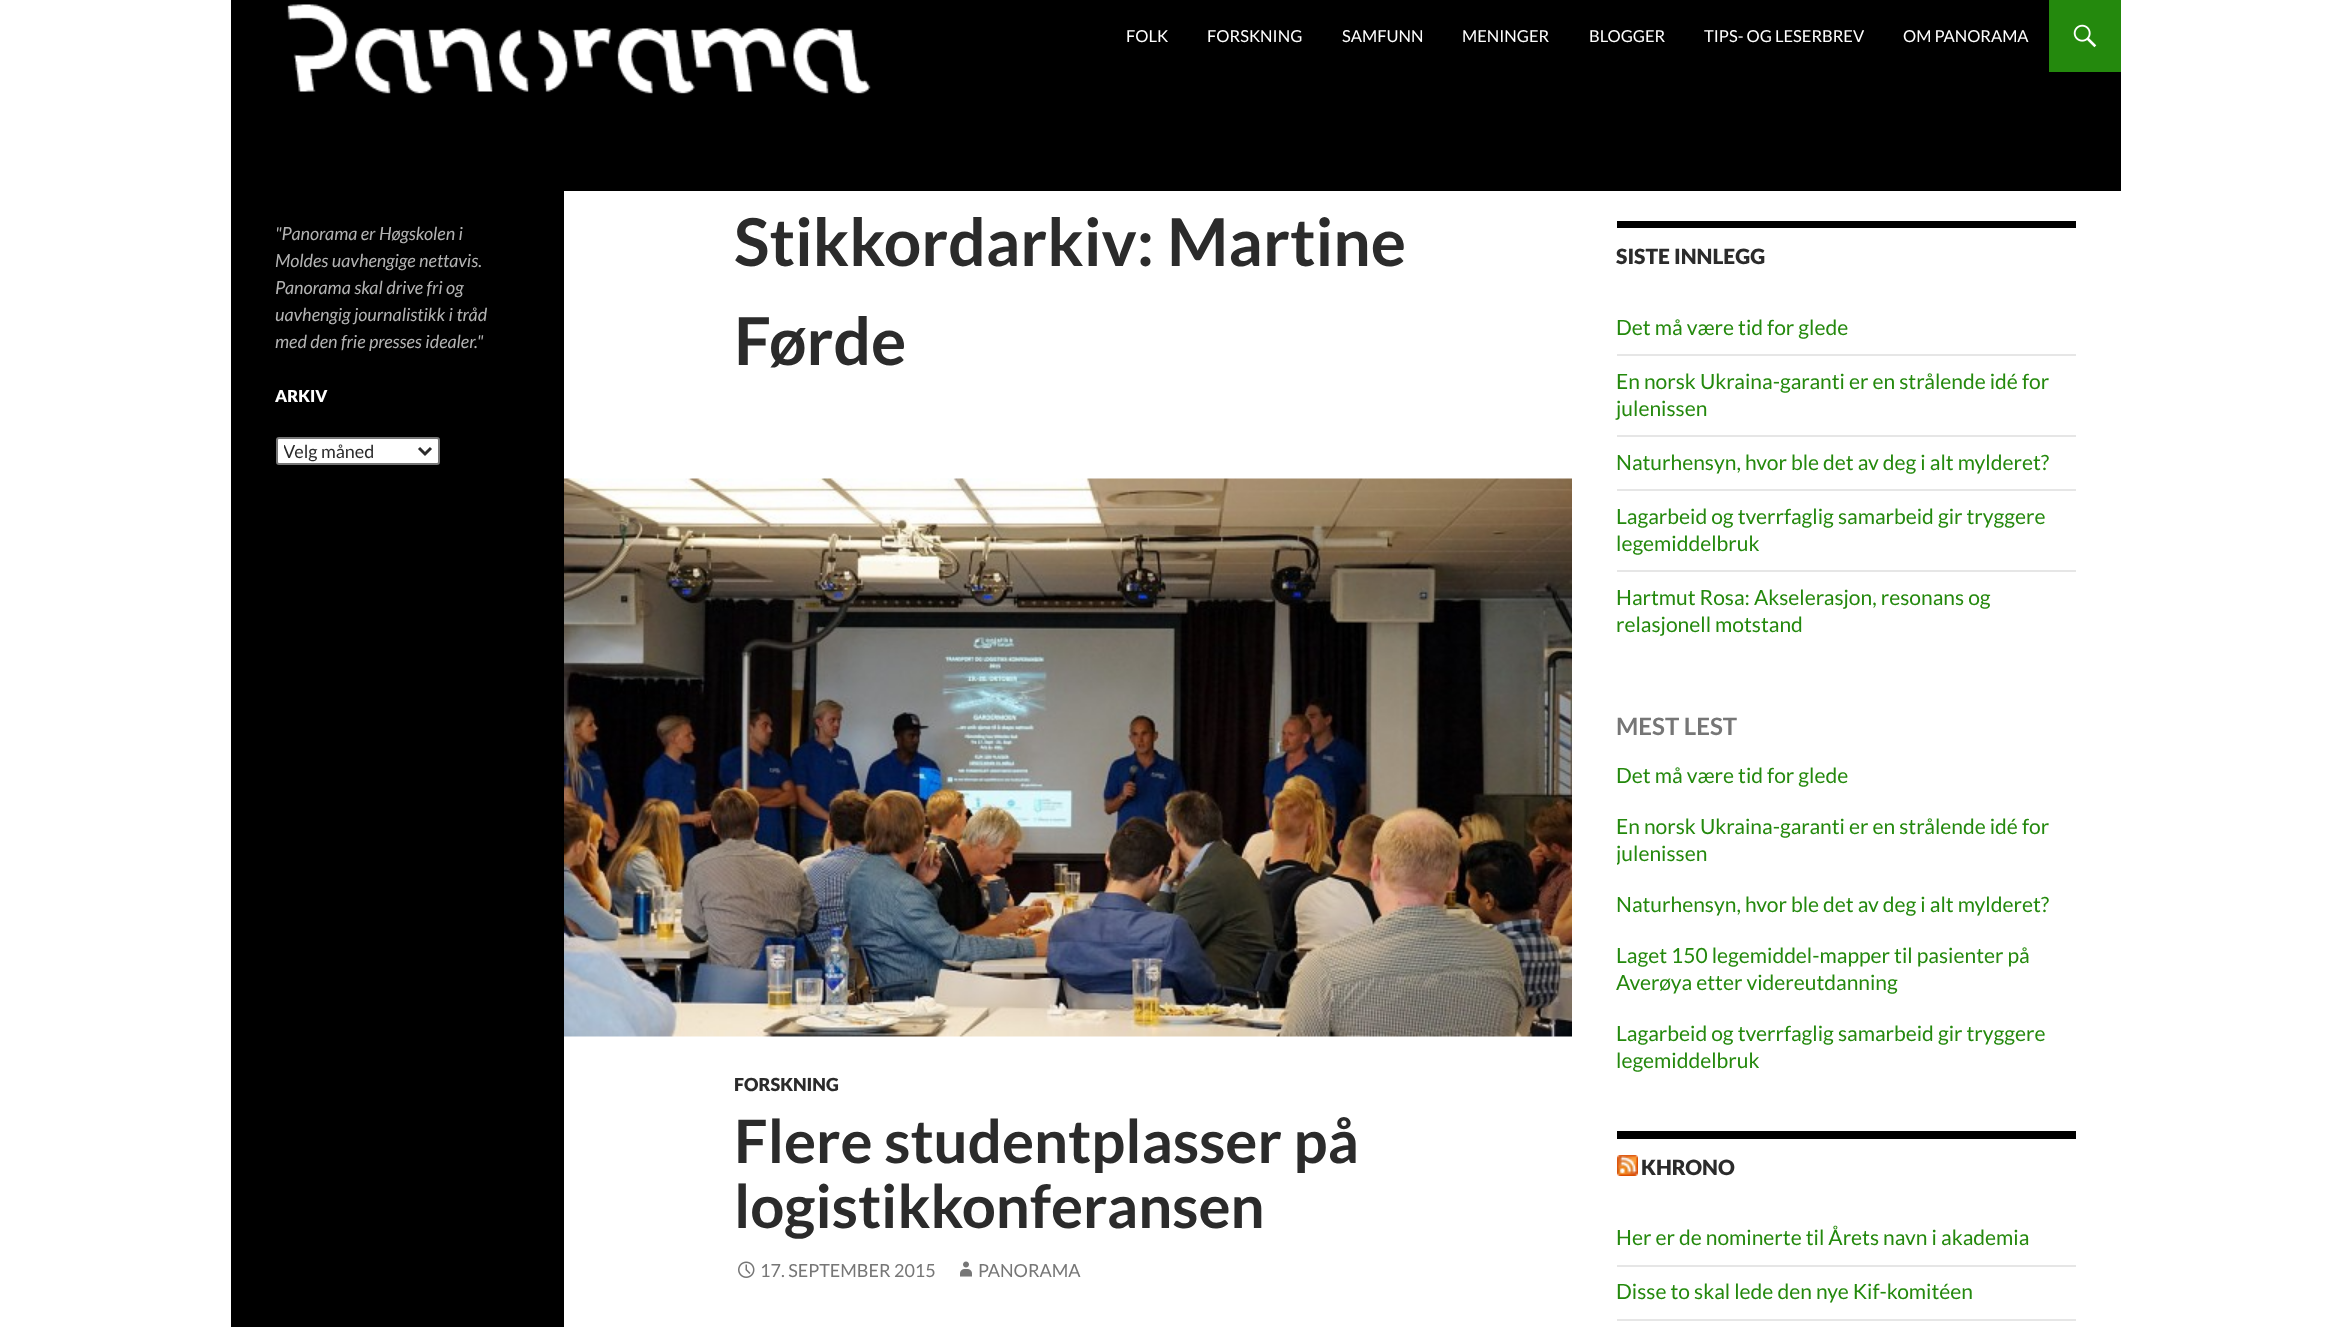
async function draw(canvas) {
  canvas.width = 2350;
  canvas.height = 1327;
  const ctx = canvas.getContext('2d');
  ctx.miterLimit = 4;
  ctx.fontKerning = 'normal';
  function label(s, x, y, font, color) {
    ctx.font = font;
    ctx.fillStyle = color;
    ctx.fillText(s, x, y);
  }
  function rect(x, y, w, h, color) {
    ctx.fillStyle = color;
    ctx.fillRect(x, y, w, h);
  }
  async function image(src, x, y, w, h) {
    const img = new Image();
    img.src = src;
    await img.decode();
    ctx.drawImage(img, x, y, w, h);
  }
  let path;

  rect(0, 0, 2350, 1327, '#fff');
  rect(231, 0, 1890, 191, '#000');
  await image('assets/img1.png', 287, 4, 584, 90);
  label('FOLK', 1126, 42, '16.5px Lato', '#fff');
  label('FORSKNING', 1207, 42, '16.5px Lato', '#fff');
  label('SAMFUNN', 1342, 42, '16.5px Lato', '#fff');
  label('MENINGER', 1462, 42, '16.5px Lato', '#fff');
  label('BLOGGER', 1589, 42, '16.5px Lato', '#fff');
  label('TIPS- OG LESERBREV', 1704, 42, '16.5px Lato', '#fff');
  label('OM PANORAMA', 1903, 42, '16.5px Lato', '#fff');
  rect(2049, 0, 72, 72, '#24890d');
  await image('assets/img2.png', 2073, 24, 24, 24);
  rect(231, 191, 333, 1136, '#000');
  label('"Panorama er Høgskolen i', 275, 240, 'italic 18px Lato', '#b3b3b3');
  label('Moldes uavhengige nettavis.', 275, 267, 'italic 18px Lato', '#b3b3b3');
  label('Panorama skal drive fri og', 275, 294, 'italic 18px Lato', '#b3b3b3');
  label('uavhengig journalistikk i tråd', 275, 321, 'italic 18px Lato', '#b3b3b3');
  label('med den frie presses idealer."', 275, 348, 'italic 18px Lato', '#b3b3b3');
  label('ARKIV', 275, 402, '900 16.5px Lato', '#fff');
  ctx.beginPath();
  ctx.roundRect(277, 438, 162, 26, 2);
  ctx.fill();
  ctx.strokeStyle = '#767676';
  ctx.lineWidth = 2;
  ctx.stroke();
  path = new Path2D('M419 448L425 454L431 448');
  ctx.strokeStyle = '#2b2b2b';
  ctx.lineWidth = 3;
  ctx.stroke(path);
  ctx.save();
  ctx.beginPath();
  ctx.rect(284, 438, 130, 26);
  ctx.clip();
  label('Velg måned', 283, 458, '18px Lato', '#2b2b2b');
  ctx.restore();
  label('Stikkordarkiv: Martine', 734, 266, 'bold 66px Lato', '#2b2b2b');
  label('Førde', 734, 365, 'bold 66px Lato', '#2b2b2b');
  await image('assets/img3.png', 564, 478, 1008, 559);
  label('FORSKNING', 734, 1091, '900 18px Lato', '#2b2b2b');
  label('Flere studentplasser på', 734, 1163, 'bold 60px Lato', '#2b2b2b');
  label('logistikkonferansen', 734, 1228, 'bold 60px Lato', '#2b2b2b');
  await image('assets/img4.png', 738, 1261, 17, 17);
  label('17. SEPTEMBER 2015', 760, 1277, '18px Lato', '#767676');
  await image('assets/img5.png', 960, 1261, 12, 16);
  label('PANORAMA', 978, 1277, '18px Lato', '#767676');
  rect(1617, 221, 459, 7, '#000');
  label('SISTE INNLEGG', 1616, 264, '900 21px Lato', '#2b2b2b');
  label('Det må være tid for glede', 1616, 335, '21px Lato', '#24890d');
  rect(1617, 354, 459, 2, '#e6e6e6');
  label('En norsk Ukraina-garanti er en strålende idé for', 1616, 389, '21px Lato', '#24890d');
  label('julenissen', 1616, 416, '21px Lato', '#24890d');
  rect(1617, 435, 459, 2, '#e6e6e6');
  label('Naturhensyn, hvor ble det av deg i alt mylderet?', 1616, 470, '21px Lato', '#24890d');
  rect(1617, 489, 459, 2, '#e6e6e6');
  label('Lagarbeid og tverrfaglig samarbeid gir tryggere', 1616, 524, '21px Lato', '#24890d');
  label('legemiddelbruk', 1616, 551, '21px Lato', '#24890d');
  rect(1617, 570, 459, 2, '#e6e6e6');
  label('Hartmut Rosa: Akselerasjon, resonans og', 1616, 605, '21px Lato', '#24890d');
  label('relasjonell motstand', 1616, 632, '21px Lato', '#24890d');
  label('MEST LEST', 1616, 735, 'bold 24px Lato', '#767676');
  label('Det må være tid for glede', 1616, 783, '21px Lato', '#24890d');
  label('En norsk Ukraina-garanti er en strålende idé for', 1616, 834, '21px Lato', '#24890d');
  ctx.save();
  ctx.beginPath();
  ctx.rect(1617, 813, 459, 54);
  ctx.clip();
  label('julenissen', 1616, 861, '21px Lato', '#24890d');
  ctx.restore();
  label('Naturhensyn, hvor ble det av deg i alt mylderet?', 1616, 912, '21px Lato', '#24890d');
  label('Laget 150 legemiddel-mapper til pasienter på', 1616, 963, '21px Lato', '#24890d');
  label('Averøya etter videreutdanning', 1616, 990, '21px Lato', '#24890d');
  label('Lagarbeid og tverrfaglig samarbeid gir tryggere', 1616, 1041, '21px Lato', '#24890d');
  label('legemiddelbruk', 1616, 1068, '21px Lato', '#24890d');
  rect(1617, 1131, 459, 8, '#000');
  await image('assets/img6.png', 1617, 1155, 21, 21);
  label('KHRONO', 1641, 1175, '900 21px Lato', '#2b2b2b');
  label('Her er de nominerte til Årets navn i akademia', 1616, 1245, '21px Lato', '#24890d');
  rect(1617, 1265, 459, 2, '#e6e6e6');
  label('Disse to skal lede den nye Kif-komitéen', 1616, 1299, '21px Lato', '#24890d');
  rect(1617, 1319, 459, 2, '#e6e6e6');
}

draw(document.querySelector('canvas'));
